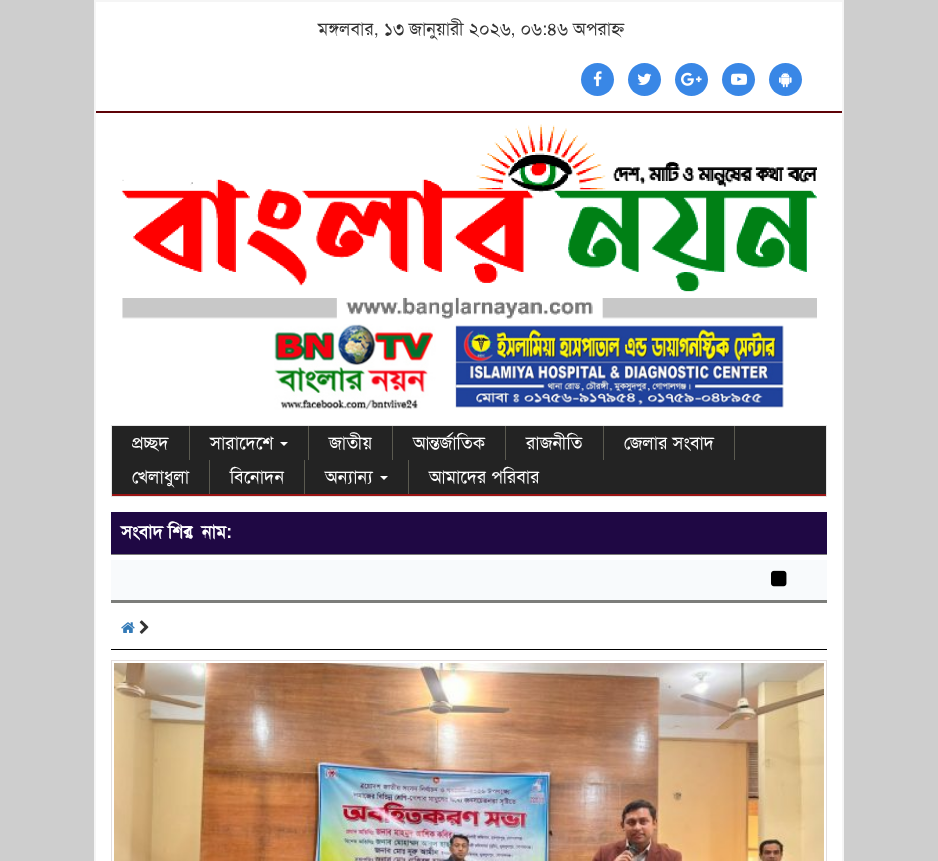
async function draw(canvas) {
  canvas.width = 938;
  canvas.height = 861;
  const ctx = canvas.getContext('2d');
  ctx.miterLimit = 4;
  ctx.fontKerning = 'normal';
  function label(s, x, y, font, color) {
    ctx.font = font;
    ctx.fillStyle = color;
    ctx.fillText(s, x, y);
  }
  function rect(x, y, w, h, color) {
    ctx.fillStyle = color;
    ctx.fillRect(x, y, w, h);
  }
  async function image(src, x, y, w, h) {
    const img = new Image();
    img.src = src;
    await img.decode();
    ctx.drawImage(img, x, y, w, h);
  }
  let path;

  rect(0, 0, 938, 861, '#cecece');
  ctx.fillStyle = '#fff';
  ctx.beginPath();
  ctx.rect(95, 1, 748, 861);
  ctx.fill();
  ctx.strokeStyle = '#f5f5f5';
  ctx.lineWidth = 2;
  ctx.stroke();
  rect(96, 111, 746, 2, '#5e0207');
  label('মঙ্গলবার, ১৩ জানুয়ারী ২০২৬, ০৬:৪৬ অপরাহ্ন', 318, 35, '18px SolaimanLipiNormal', '#333');
  ctx.fillStyle = '#3987e6';
  ctx.beginPath();
  ctx.arc(597.5, 79.5, 16.5, 0, 2 * Math.PI);
  ctx.fill();
  await image('assets/img1.png', 593, 71, 9, 16);
  ctx.beginPath();
  ctx.arc(644.5, 79.5, 16.5, 0, 2 * Math.PI);
  ctx.fill();
  await image('assets/img2.png', 637, 73, 15, 12);
  ctx.beginPath();
  ctx.arc(691.5, 79.5, 16.5, 0, 2 * Math.PI);
  ctx.fill();
  await image('assets/img3.png', 681, 72, 21, 14);
  ctx.beginPath();
  ctx.arc(738.5, 79.5, 16.5, 0, 2 * Math.PI);
  ctx.fill();
  await image('assets/img4.png', 731, 73, 16, 12);
  ctx.beginPath();
  ctx.arc(785.5, 79.5, 16.5, 0, 2 * Math.PI);
  ctx.fill();
  await image('assets/img5.png', 779, 72, 13, 16);
  await image('assets/img6.png', 121, 124, 696, 195);
  await image('assets/img7.png', 274, 324, 510, 86);
  ctx.strokeStyle = '#e7e7e7';
  ctx.lineWidth = 1;
  ctx.strokeRect(111.5, 425.5, 715, 71);
  rect(112, 426, 714, 68, '#232323');
  rect(112, 494, 714, 2, '#9a1515');
  rect(189, 426, 1, 34, '#5b5a50');
  label('প্রচ্ছদ', 132, 449, '18px SolaimanLipiNormal', '#fff');
  rect(308, 426, 1, 34, '#5b5a50');
  label('সারাদেশে', 210, 449, '18px SolaimanLipiNormal', '#fff');
  path = new Path2D('M280 442H288L284 446Z');
  ctx.fill(path);
  rect(392, 426, 1, 34, '#5b5a50');
  label('জাতীয়', 329, 449, '18px SolaimanLipiNormal', '#fff');
  rect(505, 426, 1, 34, '#5b5a50');
  label('আন্তর্জাতিক', 413, 449, '18px SolaimanLipiNormal', '#fff');
  rect(603, 426, 1, 34, '#5b5a50');
  label('রাজনীতি', 526, 449, '18px SolaimanLipiNormal', '#fff');
  rect(734, 426, 1, 34, '#5b5a50');
  label('জেলার সংবাদ', 624, 449, '18px SolaimanLipiNormal', '#fff');
  rect(209, 460, 1, 34, '#5b5a50');
  label('খেলাধুলা', 132, 483, '18px SolaimanLipiNormal', '#fff');
  rect(304, 460, 1, 34, '#5b5a50');
  label('বিনোদন', 230, 483, '18px SolaimanLipiNormal', '#fff');
  rect(408, 460, 1, 34, '#5b5a50');
  label('অন্যান্য', 325, 483, '18px SolaimanLipiNormal', '#fff');
  path = new Path2D('M380 476H388L384 480Z');
  ctx.fill(path);
  label('আমাদের পরিবার', 429, 483, '18px SolaimanLipiNormal', '#fff');
  rect(111, 512, 716, 42, '#1f0844');
  rect(111, 554, 716, 1, '#7c7d7a');
  label('সংবাদ শিরোনাম:', 121, 538, 'bold 18px SolaimanLipiNormal', '#fff');
  rect(111, 560, 716, 40, '#f8fafc');
  rect(111, 600, 716, 3, '#7c7d7a');
  await image('assets/img8.png', 771, 570, 16, 17);
  rect(111, 649, 716, 1, '#000');
  await image('assets/img9.png', 121, 622, 14, 11);
  await image('assets/img10.png', 139, 620, 10, 14);
  ctx.strokeStyle = '#e3dddd';
  ctx.strokeRect(111.5, 660.5, 715, 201);
  await image('assets/img11.png', 114, 663, 710, 198);
}

draw(document.querySelector('canvas'));
